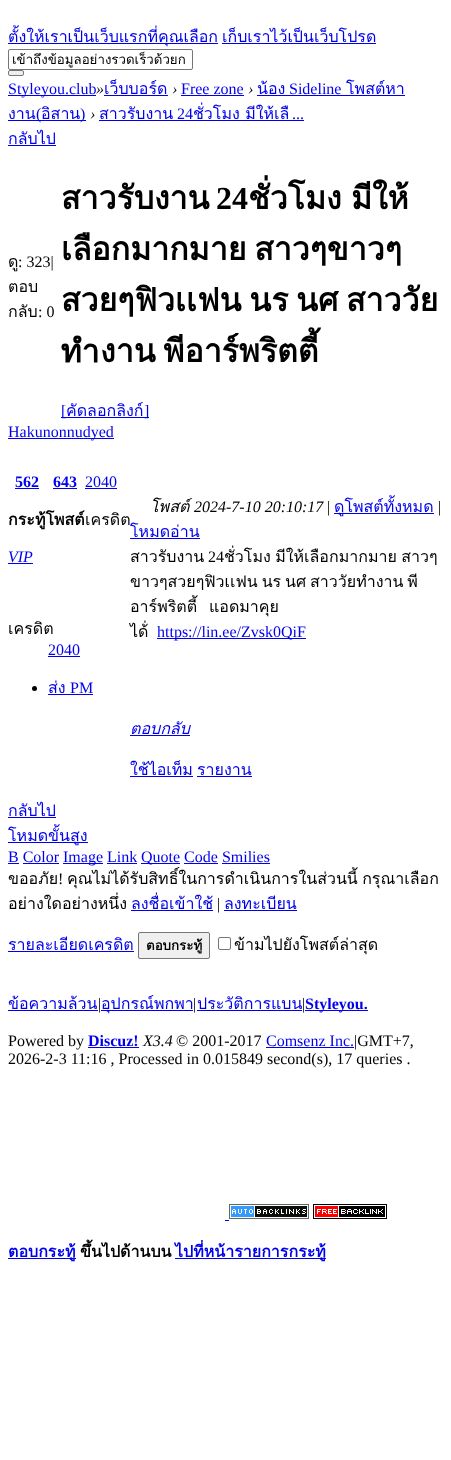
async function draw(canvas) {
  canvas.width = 451;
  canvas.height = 1460;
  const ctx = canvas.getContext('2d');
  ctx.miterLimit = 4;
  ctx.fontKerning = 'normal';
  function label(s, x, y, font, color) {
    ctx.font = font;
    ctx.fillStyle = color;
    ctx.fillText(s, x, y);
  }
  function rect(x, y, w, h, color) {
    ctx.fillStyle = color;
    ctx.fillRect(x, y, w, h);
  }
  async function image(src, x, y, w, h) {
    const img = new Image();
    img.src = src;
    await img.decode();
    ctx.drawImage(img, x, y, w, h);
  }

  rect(0, 0, 451, 1460, '#fff');
  rect(8, 43, 210, 1, '#00e');
  label('ตั้งให้เราเป็นเว็บแรกที่คุณเลือก', 8, 42, '16px Loma', '#00e');
  label('เก็บเราไว้เป็นเว็บโปรด', 222, 42, '16px Loma', '#00e');
  rect(222, 43, 154, 1, '#00e');
  ctx.beginPath();
  ctx.roundRect(8.5, 49.5, 184, 20, 1.5);
  ctx.strokeStyle = '#767676';
  ctx.stroke();
  ctx.save();
  ctx.beginPath();
  ctx.rect(12, 51, 177, 17);
  ctx.clip();
  label('เข้าถึงข้อมูลอย่างรวดเร็วด้วยก', 12, 64, '13.3px Loma', '#000');
  ctx.restore();
  ctx.fillStyle = '#efefef';
  ctx.beginPath();
  ctx.roundRect(8.5, 70.5, 15, 5, 1.5);
  ctx.fill();
  ctx.stroke();
  rect(8, 95, 88, 1, '#00e');
  label('Styleyou.club', 8, 94, '16px Liberation Serif', '#00e');
  label('»', 96, 94, 'italic 16px Liberation Serif', '#000');
  label('เว็บบอร์ด', 104, 94, '16px Loma', '#00e');
  rect(104, 95, 64, 1, '#00e');
  label('›', 172, 94, 'italic 16px Liberation Serif', '#000');
  label('Free zone', 181, 94, '16px Liberation Serif', '#00e');
  rect(181, 95, 63, 1, '#00e');
  label('›', 248, 94, 'italic 16px Liberation Serif', '#000');
  label('น้อง', 257, 94, '16px Loma', '#00e');
  label('Sideline', 289, 94, '16px Liberation Serif', '#00e');
  rect(257, 95, 148, 1, '#00e');
  label('โพสต์หา', 346, 94, '16px Loma', '#00e');
  label('งาน', 8, 119, '16px Loma', '#00e');
  rect(8, 120, 78, 1, '#00e');
  label('(', 36, 119, '16px Liberation Serif', '#00e');
  label('อิสาน', 41, 119, '16px Loma', '#00e');
  label('สาวรับงาน', 99, 119, '16px Loma', '#00e');
  label('24', 177, 119, '16px Liberation Serif', '#00e');
  label('ชั่วโมง มีให้เลื', 193, 119, '16px Loma', '#00e');
  label(')', 80, 119, '16px Liberation Serif', '#00e');
  label('›', 90, 119, 'italic 16px Liberation Serif', '#000');
  label('...', 292, 119, '16px Liberation Serif', '#00e');
  rect(99, 120, 205, 1, '#00e');
  label('กลับไป', 8, 144, '16px Loma', '#00e');
  rect(8, 145, 48, 1, '#00e');
  label('ดู', 8, 267, '16px Loma', '#000');
  label(': 323|', 18, 267, '16px Liberation Serif', '#000');
  label('ตอบ', 8, 292, '16px Loma', '#000');
  label('กลับ', 8, 317, '16px Loma', '#000');
  label(': 0', 38, 317, '16px Liberation Serif', '#000');
  label('สาวรับงาน', 61, 209, 'bold 32px Loma', '#000');
  label('24', 216, 209, 'bold 32px Liberation Serif', '#000');
  ctx.wordSpacing = '-1.5px';
  label('ชั่วโมง มีให้', 248, 209, 'bold 32px Loma', '#000');
  ctx.wordSpacing = '-3px';
  label('เลือกมากมาย สาวๆขาวๆ', 61, 260, 'bold 32px Loma', '#000');
  label('สวยๆฟิวเเฟน นร นศ สาววัย', 61, 311, 'bold 32px Loma', '#000');
  label('ทำงาน พีอาร์พริตตี้', 61, 362, 'bold 32px Loma', '#000');
  rect(61, 417, 88, 1, '#00e');
  ctx.wordSpacing = '0px';
  label('[', 61, 416, '16px Liberation Serif', '#00e');
  label('คัดลอกลิงก์', 66, 416, '16px Loma', '#00e');
  label(']', 144, 416, '16px Liberation Serif', '#00e');
  rect(8, 438, 106, 1, '#00e');
  label('Hakunonnudyed', 8, 437, '16px Liberation Serif', '#00e');
  label('562', 15, 487, 'bold 16px Liberation Serif', '#00e');
  rect(15, 488, 24, 1, '#00e');
  label('กระทู้โพสต์', 8, 525, 'bold 16px Loma', '#000');
  label('643', 53, 487, 'bold 16px Liberation Serif', '#00e');
  rect(53, 488, 24, 1, '#00e');
  label('2040', 85, 487, '16px Liberation Serif', '#00e');
  rect(85, 488, 32, 1, '#00e');
  label('เครดิต', 85, 525, '16px Loma', '#000');
  label('VIP', 8, 562, 'italic 16px Liberation Serif', '#00e');
  rect(8, 563, 25, 1, '#00e');
  label('เครดิต', 8, 634, '16px Loma', '#000');
  label('2040', 48, 655, '16px Liberation Serif', '#00e');
  rect(48, 656, 32, 1, '#00e');
  ctx.fillStyle = '#000';
  ctx.beginPath();
  ctx.arc(34.5, 688.5, 2.5, 0, 2 * Math.PI);
  ctx.fill();
  label('ส่ง', 48, 693, '16px Loma', '#00e');
  label('PM', 70, 693, '16px Liberation Serif', '#00e');
  rect(48, 694, 45, 1, '#00e');
  label('โพสต์', 150, 512, 'italic 16px Loma', '#000');
  rect(334, 513, 100, 1, '#00e');
  label('|', 327, 512, '16px Liberation Serif', '#000');
  label('ดูโพสต์ทั้งหมด', 334, 512, '16px Loma', '#00e');
  label('2024-7-10 20:10:17', 194, 512, 'italic 16px Liberation Serif', '#000');
  label('|', 438, 512, '16px Liberation Serif', '#000');
  label('โหมดอ่าน', 130, 537, '16px Loma', '#00e');
  rect(130, 538, 70, 1, '#00e');
  label('สาวรับงาน', 130, 562, '16px Loma', '#000');
  label('24', 208, 562, '16px Liberation Serif', '#000');
  ctx.wordSpacing = '-1px';
  label('ชั่วโมง มีให้เลือกมากมาย สาวๆ', 224, 562, '16px Loma', '#000');
  ctx.wordSpacing = '-1.5px';
  label('ขาวๆสวยๆฟิวเเฟน นร นศ สาววัยทำงาน พี', 130, 587, '16px Loma', '#000');
  ctx.wordSpacing = '0px';
  label('อาร์พริตตี้', 130, 612, '16px Loma', '#000');
  label('แอดมาคุย', 209, 612, '16px Loma', '#000');
  label('ได้่', 130, 637, '16px Loma', '#000');
  rect(157, 638, 149, 1, '#00e');
  label('https://lin.ee/Zvsk0QiF', 157, 637, '16px Liberation Serif', '#00e');
  label('ตอบกลับ', 130, 734, 'italic 16px Loma', '#00e');
  rect(130, 735, 60, 1, '#00e');
  label('ใช้ไอเท็ม', 130, 775, '16px Loma', '#00e');
  rect(130, 776, 63, 1, '#00e');
  label('รายงาน', 197, 775, '16px Loma', '#00e');
  rect(197, 776, 55, 1, '#00e');
  label('กลับไป', 8, 816, '16px Loma', '#00e');
  rect(8, 817, 48, 1, '#00e');
  rect(8, 842, 80, 1, '#00e');
  label('โหมดขั้นสูง', 8, 841, '16px Loma', '#00e');
  label('B Color', 8, 862, '16px Liberation Serif', '#00e');
  rect(8, 863, 11, 1, '#00e');
  rect(63, 863, 40, 1, '#00e');
  label('Image Link', 63, 862, '16px Liberation Serif', '#00e');
  rect(141, 863, 39, 1, '#00e');
  label('Quote Code Smilies', 141, 862, '16px Liberation Serif', '#00e');
  rect(23, 863, 36, 1, '#00e');
  rect(107, 863, 30, 1, '#00e');
  rect(184, 863, 34, 1, '#00e');
  rect(222, 863, 48, 1, '#00e');
  label('ขออภัย', 8, 884, '16px Loma', '#000');
  label('!', 58, 884, '16px Liberation Serif', '#000');
  ctx.wordSpacing = '-1px';
  label('คุณไม่ได้รับสิทธิ์ในการดำเนินการในส่วนนี้ กรุณาเลือก', 67, 884, '16px Loma', '#000');
  ctx.wordSpacing = '0px';
  label('อย่างใดอย่างหนึ่ง', 8, 909, '16px Loma', '#000');
  label('ลงชื่อเข้าใช้', 131, 909, '16px Loma', '#00e');
  rect(131, 910, 82, 1, '#00e');
  label('|', 217, 909, '16px Liberation Serif', '#000');
  label('ลงทะเบียน', 224, 909, '16px Loma', '#00e');
  rect(224, 910, 73, 1, '#00e');
  label('รายละเอียดเครดิต', 8, 950, '16px Loma', '#00e');
  rect(8, 951, 126, 1, '#00e');
  ctx.fillStyle = '#efefef';
  ctx.beginPath();
  ctx.roundRect(138.5, 932.5, 71, 26, 1.5);
  ctx.fill();
  ctx.stroke();
  label('ตอบกระทู้', 146, 950, 'bold 13.3px Loma', '#000');
  ctx.beginPath();
  ctx.roundRect(218.5, 937.5, 12, 12, 1.5);
  ctx.stroke();
  label('ข้ามไปยังโพสต์ล่าสุด', 234, 950, '16px Loma', '#000');
  label('ข้อความล้วน', 8, 1009, '16px Loma', '#00e');
  rect(8, 1010, 90, 1, '#00e');
  rect(101, 1010, 92, 1, '#00e');
  label('|', 98, 1009, '16px Liberation Serif', '#000');
  label('อุปกรณ์พกพา', 101, 1009, '16px Loma', '#00e');
  label('ประวัติการแบน', 197, 1009, '16px Loma', '#00e');
  rect(197, 1010, 105, 1, '#00e');
  label('|', 193, 1009, '16px Liberation Serif', '#000');
  label('|', 302, 1009, '16px Liberation Serif', '#000');
  rect(305, 1010, 63, 1, '#00e');
  label('Styleyou.', 305, 1009, 'bold 16px Liberation Serif', '#00e');
  label('Powered by', 8, 1046, '16px Liberation Serif', '#000');
  label('Discuz!', 88, 1046, 'bold 16px Liberation Serif', '#00e');
  rect(88, 1047, 51, 1, '#00e');
  label('X3.4', 143, 1046, 'italic 16px Liberation Serif', '#000');
  label('© 2001-2017', 176, 1046, '16px Liberation Serif', '#000');
  label('Comsenz Inc.', 266, 1046, '16px Liberation Serif', '#00e');
  rect(266, 1047, 88, 1, '#00e');
  label('|GMT+7,', 354, 1046, '16px Liberation Serif', '#000');
  label('2026-2-3 11:16 , Processed in 0.015849 second(s), 17 queries .', 8, 1064, '16px Liberation Serif', '#000');
  await image('assets/img1.png', 229, 1204, 80, 15);
  await image('assets/img2.png', 313, 1204, 74, 15);
  rect(225, 1220, 4, 1, '#00e');
  rect(8, 1258, 68, 1, '#00e');
  label('ตอบกระทู้', 8, 1257, 'bold 16px Loma', '#00e');
  label('ขึ้นไปด้านบน', 80, 1257, 'bold 16px Loma', '#000');
  rect(175, 1258, 151, 1, '#00e');
  label('ไปที่หน้ารายการกระทู้', 175, 1257, 'bold 16px Loma', '#00e');
}

draw(document.querySelector('canvas'));
